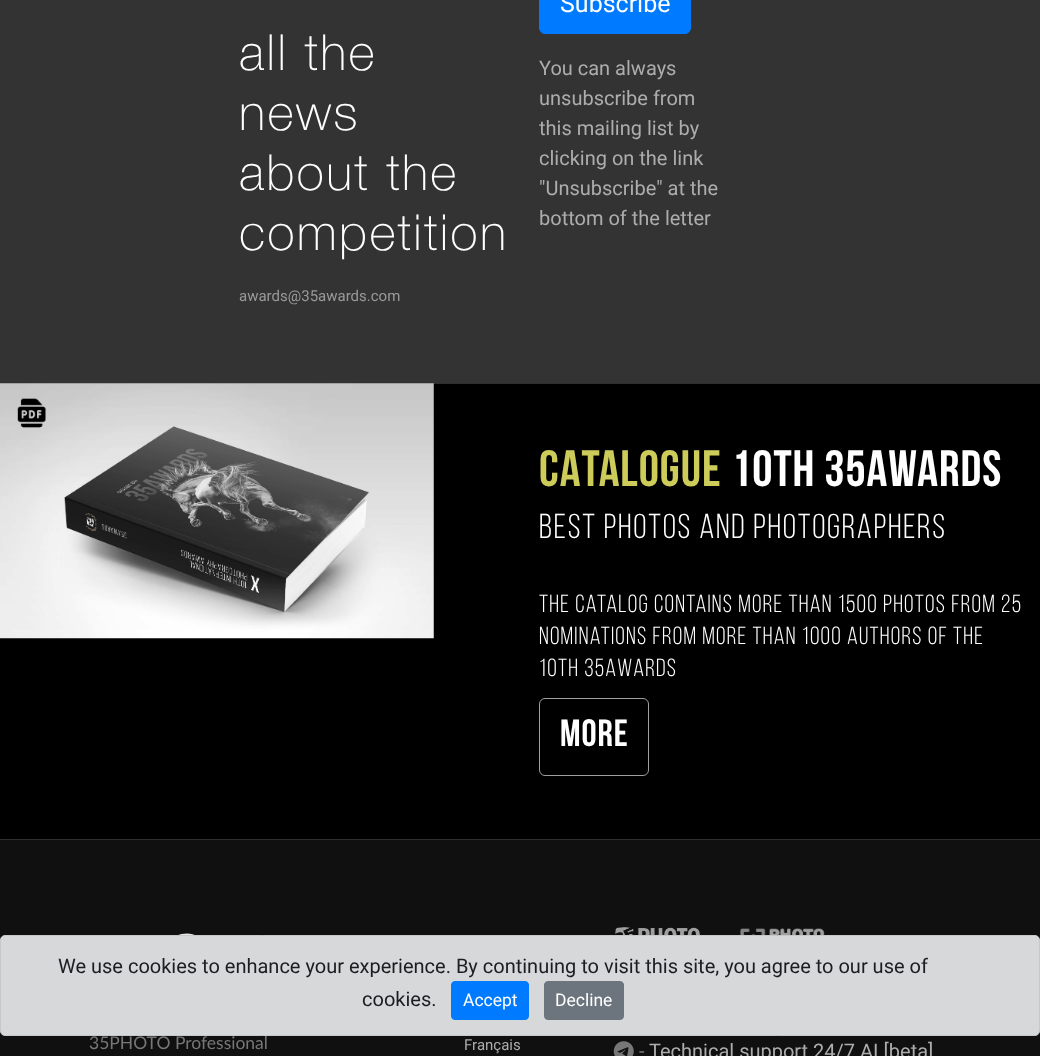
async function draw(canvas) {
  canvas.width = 1040;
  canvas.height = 1056;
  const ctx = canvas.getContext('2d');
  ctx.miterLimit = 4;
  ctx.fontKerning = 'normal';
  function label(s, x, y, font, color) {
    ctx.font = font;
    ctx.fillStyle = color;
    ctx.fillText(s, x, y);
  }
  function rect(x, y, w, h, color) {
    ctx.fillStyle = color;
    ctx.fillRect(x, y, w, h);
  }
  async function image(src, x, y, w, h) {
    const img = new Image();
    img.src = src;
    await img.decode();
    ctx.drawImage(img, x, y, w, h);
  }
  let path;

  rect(0, 0, 1040, 1056, '#333');
  ctx.letterSpacing = '2.5px';
  label('all the', 239, 70, '100 50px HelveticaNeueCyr', '#fff');
  label('news', 239, 130, '100 50px HelveticaNeueCyr', '#fff');
  label('about the', 239, 190, '100 50px HelveticaNeueCyr', '#fff');
  label('competition', 239, 250, '100 50px HelveticaNeueCyr', '#fff');
  ctx.letterSpacing = '0px';
  label('awards@35awards.com', 239, 301, '15px Roboto', '#999');
  ctx.fillStyle = '#007bff';
  ctx.beginPath();
  ctx.roundRect(539.5, -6.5, 151, 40, 5.5);
  ctx.fill();
  ctx.strokeStyle = '#007bff';
  ctx.stroke();
  label('Subscribe', 560, 12, '25px Roboto', '#fff');
  label('You can always', 539, 75, '20px Roboto', '#adadad');
  label('unsubscribe from', 539, 105, '20px Roboto', '#adadad');
  label('this mailing list by', 539, 135, '20px Roboto', '#adadad');
  label('clicking on the link', 539, 165, '20px Roboto', '#adadad');
  label('"Unsubscribe" at the', 539, 195, '20px Roboto', '#adadad');
  label('bottom of the letter', 539, 225, '20px Roboto', '#adadad');
  rect(0, 384, 1040, 455, '#000');
  rect(0, 383, 1040, 1, '#2e2e2e');
  rect(0, 839, 1040, 1, '#2e2e2e');
  await image('assets/img1.png', 0, 383, 434, 256);
  ctx.letterSpacing = '1px';
  label('CATALOGUE', 539, 486, 'bold 51px Bebas Neue', '#cdcc5b');
  label('10TH 35AWARDS', 731, 486, 'bold 51px Bebas Neue', '#fff');
  ctx.letterSpacing = '1.75px';
  label('BEST PHOTOS AND PHOTOGRAPHERS', 539, 538, '34.5px Bebas Neue', '#fff');
  ctx.letterSpacing = '1.25px';
  label('The catalog contains more than 1500 photos from 25', 539, 612, '24.75px Bebas Neue', '#fff');
  label('nominations from more than 1000 authors of the', 539, 644, '24.75px Bebas Neue', '#fff');
  label('10th 35AWARDS', 539, 676, '24.75px Bebas Neue', '#fff');
  ctx.beginPath();
  ctx.roundRect(539.5, 698.5, 109, 77, 5.5);
  ctx.strokeStyle = '#9e9e9e';
  ctx.stroke();
  ctx.letterSpacing = '1px';
  label('More', 560, 746, 'bold 38px Bebas Neue', '#fff');
  rect(0, 840, 1040, 216, '#101010');
  ctx.fillStyle = '#ffffffe6';
  path = new Path2D('M193 966L197 948C197 945 192 948 191 948L173 956C172 957 178 958 179 959L192 951C192 950 193 950 192 951L182 960V966L185 963C187 963 192 969 193 966ZM206 947C217 973 177 991 165 964C154 938 195 920 206 947Z');
  ctx.fill(path);
  ctx.fillStyle = '#d6d8d9';
  ctx.beginPath();
  ctx.roundRect(0.5, 935.5, 1039, 100, 4.5);
  ctx.fill();
  ctx.strokeStyle = '#c6c8ca';
  ctx.stroke();
  ctx.letterSpacing = '0px';
  label('We use cookies to enhance your experience. By continuing to visit this site, you agree to our use of', 58, 973, '20px Roboto', '#1b1e21');
  label('cookies.', 362, 1006, '20px Roboto', '#1b1e21');
  ctx.fillStyle = '#007bff';
  ctx.beginPath();
  ctx.roundRect(451.5, 981.5, 77, 38, 3.5);
  ctx.fill();
  ctx.strokeStyle = '#007bff';
  ctx.stroke();
  label('Accept', 463, 1006, '17.5px Roboto', '#fff');
  ctx.fillStyle = '#6c757d';
  ctx.beginPath();
  ctx.roundRect(544.5, 981.5, 79, 38, 3.5);
  ctx.fill();
  ctx.strokeStyle = '#6c757d';
  ctx.stroke();
  label('Decline', 555, 1006, '17.5px Roboto', '#fff');
  label('35PHOTO Professional', 89, 1049, '17.5px Lato', '#777');
  label('Français', 464, 1050, '15px Roboto', '#adadad');
  await image('assets/img2.png', 615, 927, 85, 8);
  await image('assets/img3.png', 740, 928, 85, 7);
  await image('assets/img4.png', 613, 1041, 21, 15);
  label('-', 639, 1058, '20px Roboto', '#777');
  label('Technical support 24/7 AI [beta]', 649, 1058, '20px Roboto', '#adadad');
}

draw(document.querySelector('canvas'));
